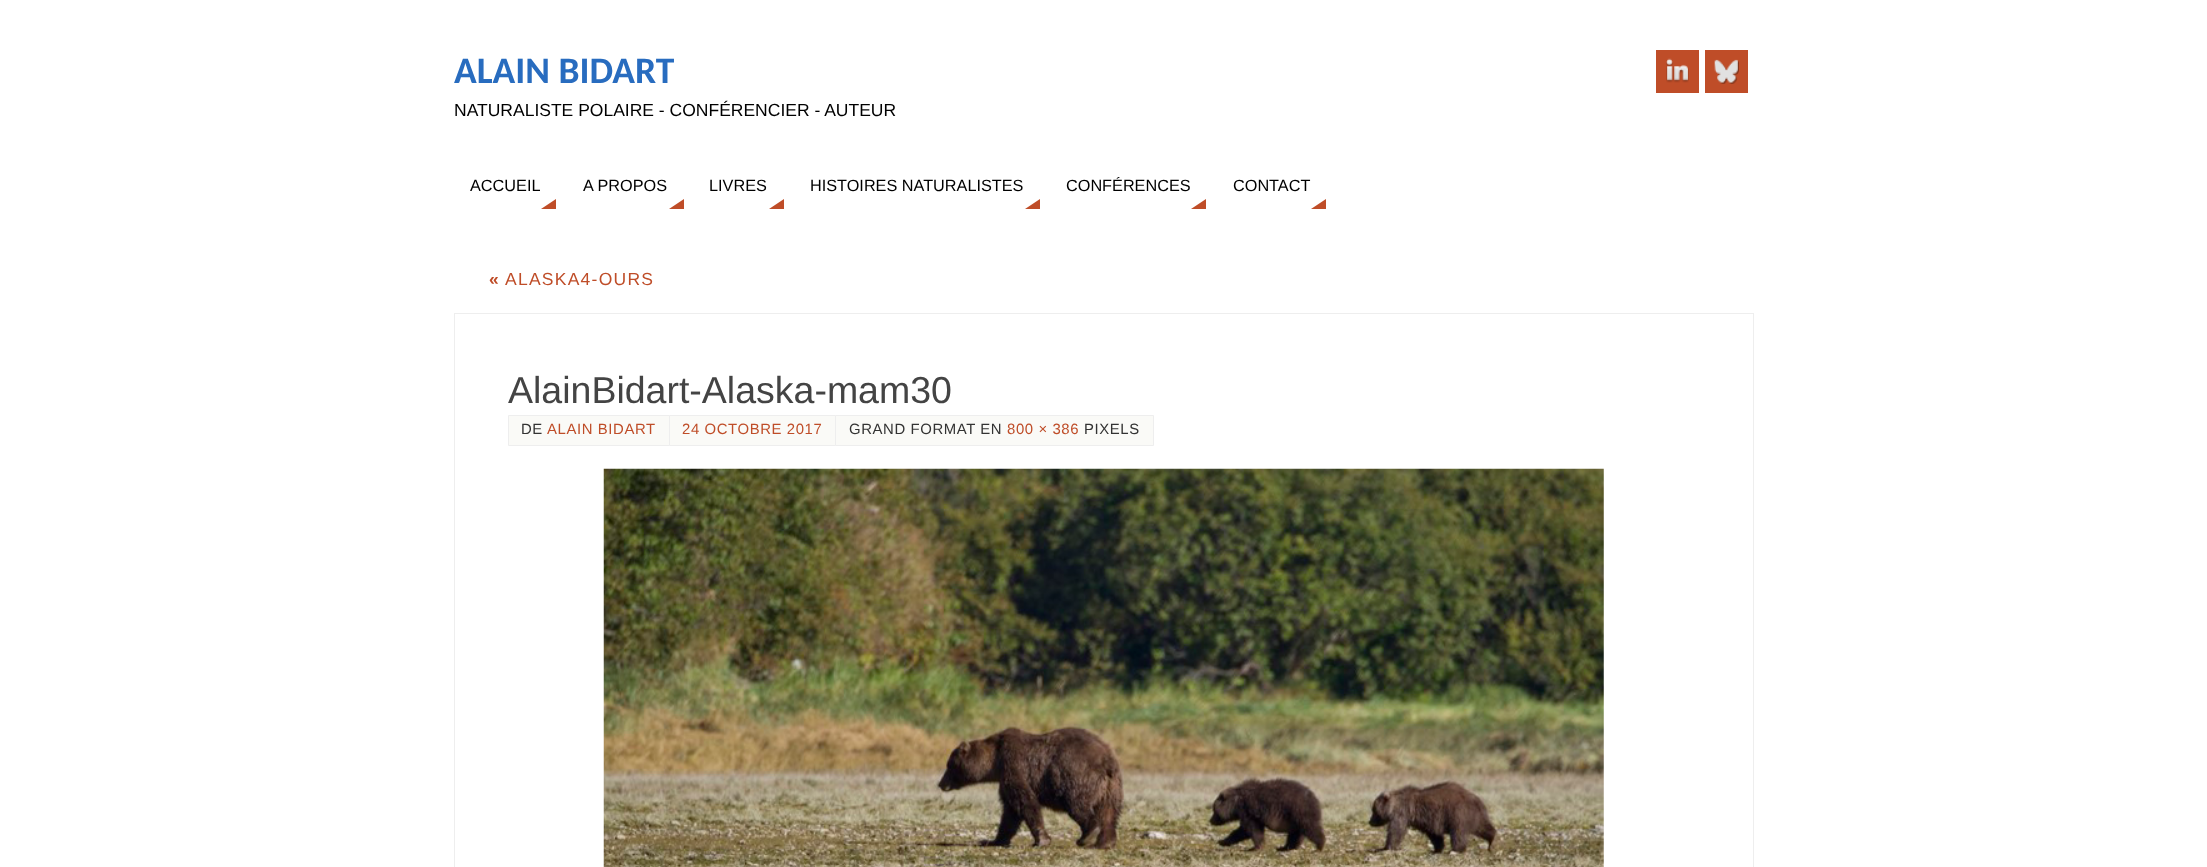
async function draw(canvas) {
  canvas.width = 2207;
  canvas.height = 867;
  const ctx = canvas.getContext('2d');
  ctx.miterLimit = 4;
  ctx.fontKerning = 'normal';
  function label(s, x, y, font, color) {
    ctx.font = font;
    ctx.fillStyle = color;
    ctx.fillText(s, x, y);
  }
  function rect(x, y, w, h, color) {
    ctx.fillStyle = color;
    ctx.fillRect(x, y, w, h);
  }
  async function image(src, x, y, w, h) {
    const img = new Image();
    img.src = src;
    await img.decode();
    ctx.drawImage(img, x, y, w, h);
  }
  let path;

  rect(0, 0, 2207, 867, '#fff');
  label('ALAIN BIDART', 454, 83, 'bold 37.5px Carlito', '#286cbf');
  label('NATURALISTE POLAIRE - CONFÉRENCIER - AUTEUR', 454, 116, '17.5px Liberation Sans', '#000');
  rect(1656, 50, 43, 43, '#bf4d28');
  await image('assets/img1.png', 1666, 58, 23, 25);
  rect(1705, 50, 43, 43, '#bf4d28');
  await image('assets/img2.png', 1714, 59, 25, 25);
  label('ACCUEIL', 470, 191, '16.25px Liberation Sans', '#000');
  ctx.fillStyle = '#bf4d28';
  path = new Path2D('M556 209H541L556 199Z');
  ctx.fill(path);
  label('A PROPOS', 583, 191, '16.25px Liberation Sans', '#000');
  ctx.fillStyle = '#bf4d28';
  path = new Path2D('M684 209H669L684 199Z');
  ctx.fill(path);
  label('LIVRES', 709, 191, '16.25px Liberation Sans', '#000');
  ctx.fillStyle = '#bf4d28';
  path = new Path2D('M784 209H769L784 199Z');
  ctx.fill(path);
  label('HISTOIRES NATURALISTES', 810, 191, '16.25px Liberation Sans', '#000');
  ctx.fillStyle = '#bf4d28';
  path = new Path2D('M1040 209H1025L1040 199Z');
  ctx.fill(path);
  label('CONFÉRENCES', 1066, 191, '16.25px Liberation Sans', '#000');
  ctx.fillStyle = '#bf4d28';
  path = new Path2D('M1206 209H1191L1206 199Z');
  ctx.fill(path);
  label('CONTACT', 1233, 191, '16.25px Liberation Sans', '#000');
  ctx.fillStyle = '#bf4d28';
  path = new Path2D('M1326 209H1311L1326 199Z');
  ctx.fill(path);
  ctx.letterSpacing = '1.25px';
  label('«', 489, 285, 'bold 17.5px Liberation Sans', '#bf4d28');
  label('ALASKA4-OURS', 505, 285, '17.5px Liberation Sans', '#bf4d28');
  ctx.strokeStyle = '#eee';
  ctx.strokeRect(454.5, 313.5, 1299, 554);
  ctx.letterSpacing = '0px';
  label('AlainBidart-Alaska-mam30', 508, 403, '37.5px Liberation Sans', '#444');
  ctx.fillStyle = '#fafaf7';
  ctx.beginPath();
  ctx.rect(508.5, 415.5, 161, 30);
  ctx.fill();
  ctx.stroke();
  ctx.letterSpacing = '0.6px';
  label('DE', 521, 434, '14.9px Liberation Sans', '#333');
  label('ALAIN BIDART', 547, 434, '14.9px Liberation Sans', '#bf4d28');
  ctx.fillStyle = '#fafaf7';
  ctx.beginPath();
  ctx.rect(669.5, 415.5, 166, 30);
  ctx.fill();
  ctx.stroke();
  label('24 OCTOBRE 2017', 682, 434, '14.9px Liberation Sans', '#bf4d28');
  ctx.fillStyle = '#fafaf7';
  ctx.beginPath();
  ctx.rect(835.5, 415.5, 318, 30);
  ctx.fill();
  ctx.stroke();
  label('GRAND FORMAT EN', 849, 434, '14.9px Liberation Sans', '#333');
  label('800 × 386', 1007, 434, '14.9px Liberation Sans', '#bf4d28');
  label('PIXELS', 1084, 434, '14.9px Liberation Sans', '#333');
  await image('assets/img3.png', 603, 468, 1001, 399);
}

draw(document.querySelector('canvas'));
